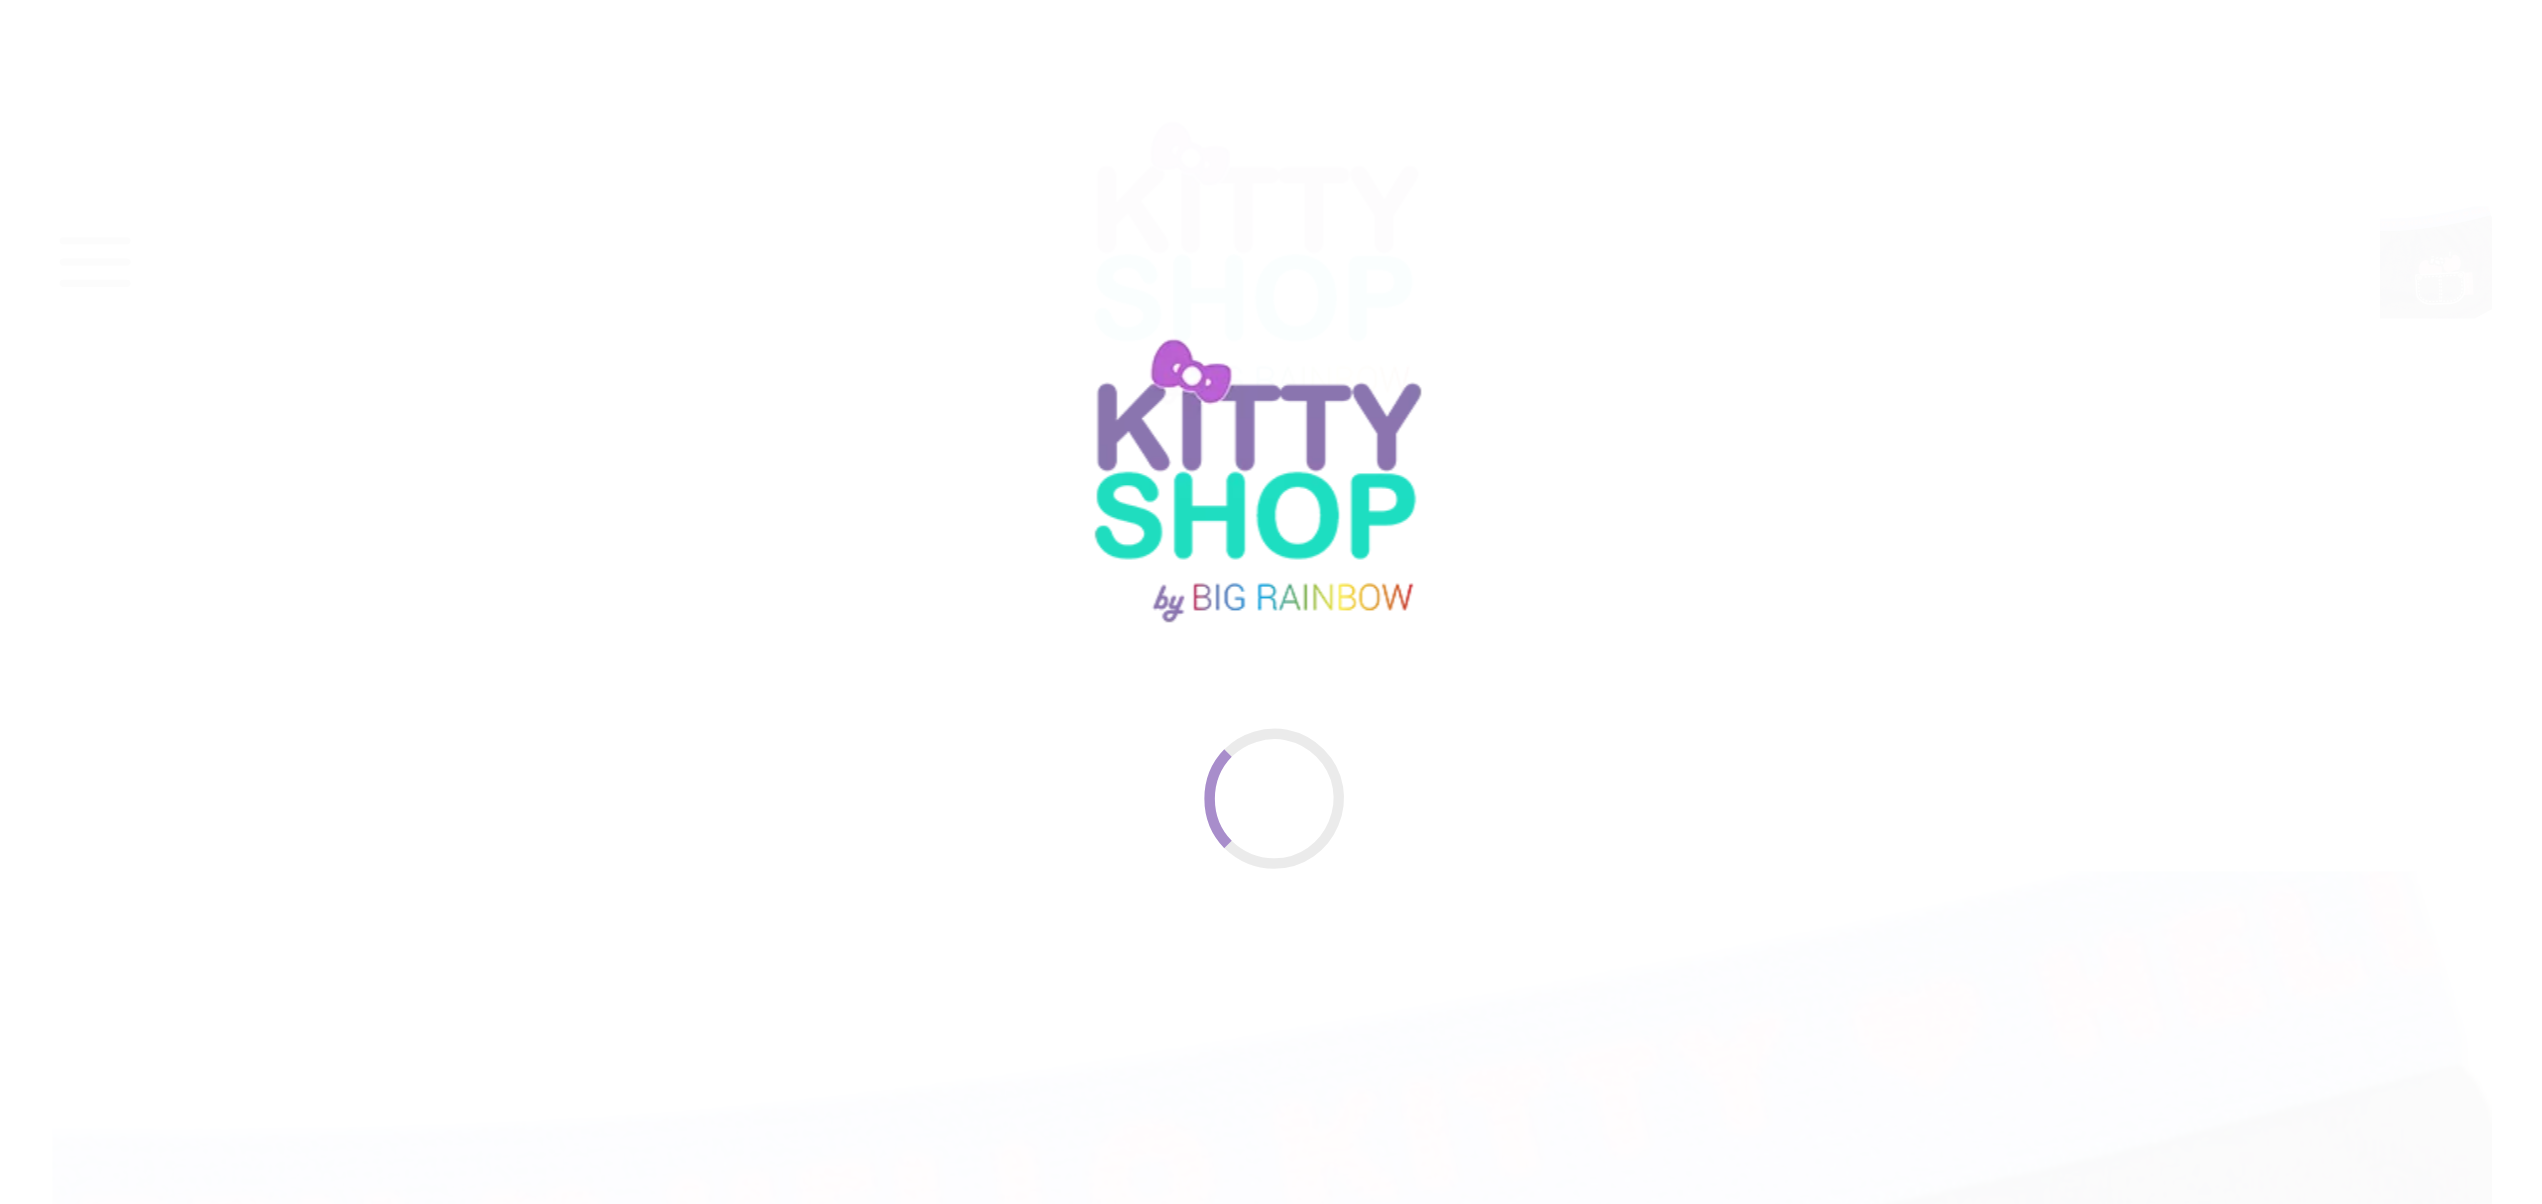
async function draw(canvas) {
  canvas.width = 2542;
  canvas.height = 1204;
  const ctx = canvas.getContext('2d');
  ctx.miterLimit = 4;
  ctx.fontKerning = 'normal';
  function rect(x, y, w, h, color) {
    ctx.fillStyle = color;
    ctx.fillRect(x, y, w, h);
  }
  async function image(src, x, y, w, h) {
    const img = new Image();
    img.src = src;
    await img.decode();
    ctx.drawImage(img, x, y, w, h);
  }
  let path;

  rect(0, 0, 2542, 1204, '#fff');
  await image('assets/img1.png', 59, 237, 72, 50);
  await image('assets/img2.png', 1094, 120, 325, 285);
  await image('assets/img3.png', 2380, 206, 112, 113);
  await image('assets/img4.png', 1094, 338, 328, 285);
  path = new Path2D('M1228 753C1243.5 738 1265.5 731 1286.5 735C1299 737.5 1311 744 1320 753C1360.5 793.5 1331 863.5 1274 863.5C1257 863.5 1240.5 856.5 1228 844.5');
  ctx.strokeStyle = '#00000014';
  ctx.lineWidth = 10.5;
  ctx.stroke(path);
  path = new Path2D('M1228 844.5C1203.5 819.5 1203.5 778 1228 753');
  ctx.strokeStyle = '#906dbdc7';
  ctx.stroke(path);
  await image('assets/img5.png', 52, 871, 2440, 333);
}

draw(document.querySelector('canvas'));
